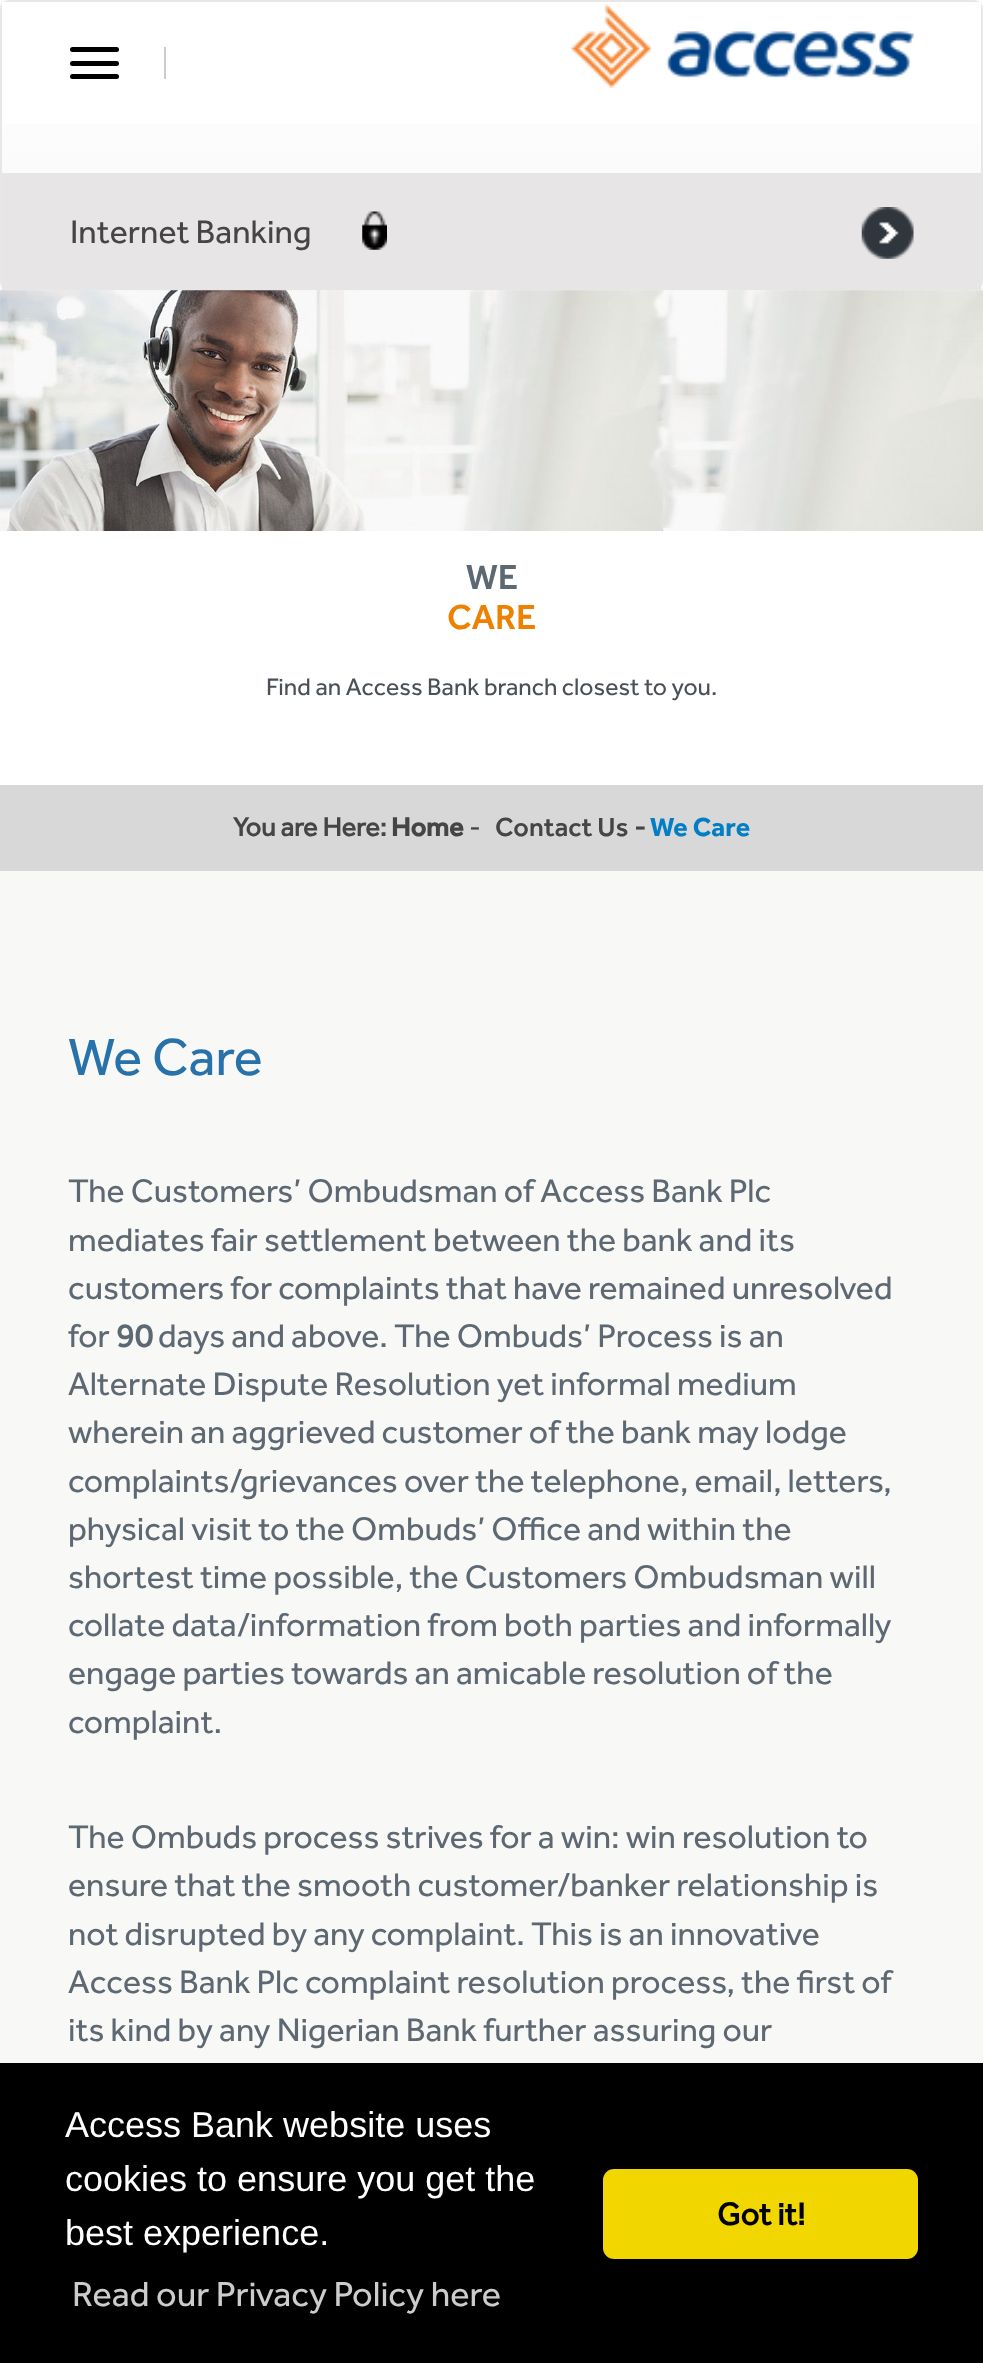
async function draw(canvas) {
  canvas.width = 983;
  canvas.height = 2363;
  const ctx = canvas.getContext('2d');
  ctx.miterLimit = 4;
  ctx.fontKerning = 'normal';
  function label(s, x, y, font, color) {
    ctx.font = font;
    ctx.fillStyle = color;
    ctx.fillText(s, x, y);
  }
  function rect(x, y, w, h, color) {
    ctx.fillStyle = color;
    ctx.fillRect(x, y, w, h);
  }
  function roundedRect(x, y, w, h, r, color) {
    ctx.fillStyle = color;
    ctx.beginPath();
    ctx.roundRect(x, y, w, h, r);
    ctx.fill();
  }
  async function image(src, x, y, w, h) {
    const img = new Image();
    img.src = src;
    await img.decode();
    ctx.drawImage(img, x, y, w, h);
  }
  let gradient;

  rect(0, 0, 983, 2363, '#fff');
  ctx.fillStyle = '#00000012';
  ctx.filter = 'blur(5.5px)';
  ctx.beginPath();
  ctx.roundRect(0, 2, 983, 291, 9);
  ctx.fill();
  ctx.filter = 'none';
  ctx.save();
  ctx.beginPath();
  ctx.roundRect(0, 0, 983, 290, 9);
  ctx.clip();
  gradient = ctx.createLinearGradient(492, 2.2, 492, 288);
  gradient.addColorStop(0, '#fff');
  gradient.addColorStop(1, '#f8f8f8');
  ctx.fillStyle = gradient;
  ctx.fillRect(0, 3, 983, 284);
  ctx.restore();
  ctx.beginPath();
  ctx.roundRect(1, 1, 981, 288, 8);
  ctx.strokeStyle = '#e7e7e7';
  ctx.lineWidth = 2;
  ctx.stroke();
  rect(2, 2, 979, 122, '#fff');
  rect(164, 47, 2, 32, '#ccc');
  roundedRect(70, 47, 49, 5, 2.5, '#000');
  roundedRect(70, 61, 49, 5, 2.5, '#000');
  roundedRect(70, 74, 49, 5, 2.5, '#000');
  await image('assets/img1.png', 571, 4, 343, 84);
  rect(2, 173, 979, 117, '#e7e5e6');
  label('Internet Banking', 70, 243, '33.75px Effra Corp', '#454545');
  await image('assets/img2.png', 362, 211, 25, 39);
  await image('assets/img3.png', 861, 207, 53, 52);
  await image('assets/img4.png', 0, 290, 983, 241);
  label('WE', 466, 589, '500 36px Effra Corp', '#5e6872');
  label('CARE', 447, 629, '500 36px Effra Corp', '#ee8102');
  label('Find an Access Bank branch closest to you.', 266, 695, '24.75px Effra Corp', '#4a5056');
  rect(0, 785, 983, 86, '#d8d8d8');
  label('You are Here:', 233, 836, 'bold 27px Effra Corp', '#454545');
  label('Home', 391, 836, 'bold 27px "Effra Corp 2"', '#454545');
  label('-', 469, 836, '27px Effra Corp', '#454545');
  label('Contact Us', 495, 836, '500 27px Effra Corp', '#454545');
  label('-', 634, 836, 'bold 27px Effra Corp', '#454545');
  label('We Care', 650, 836, 'bold 27px "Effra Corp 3"', '#027ec4');
  rect(0, 871, 983, 1192, '#f8f8f6');
  label('We Care', 68, 1075, '54px Effra Corp', '#2772aa');
  label('The Customers’ Ombudsman of Access Bank Plc', 68, 1202, '33.75px Effra Corp', '#5e6872');
  label('mediates fair settlement between the bank and its', 68, 1251, '33.75px Effra Corp', '#5e6872');
  label('customers for complaints that have remained unresolved', 68, 1299, '33.75px Effra Corp', '#5e6872');
  label('for', 68, 1347, '33.75px Effra Corp', '#5e6872');
  label('90', 116, 1347, 'bold 33.75px Effra Corp', '#5e6872');
  label('days and above. The Ombuds’ Process is an', 158, 1347, '33.75px Effra Corp', '#5e6872');
  label('Alternate Dispute Resolution yet informal medium', 68, 1395, '33.75px Effra Corp', '#5e6872');
  label('wherein an aggrieved customer of the bank may lodge', 68, 1443, '33.75px Effra Corp', '#5e6872');
  label('complaints/grievances over the telephone, email, letters,', 68, 1492, '33.75px Effra Corp', '#5e6872');
  label('physical visit to the Ombuds’ Office and within the', 68, 1540, '33.75px Effra Corp', '#5e6872');
  label('shortest time possible, the Customers Ombudsman will', 68, 1588, '33.75px Effra Corp', '#5e6872');
  label('collate data/information from both parties and informally', 68, 1636, '33.75px Effra Corp', '#5e6872');
  label('engage parties towards an amicable resolution of the', 68, 1684, '33.75px Effra Corp', '#5e6872');
  label('complaint.', 68, 1733, '33.75px Effra Corp', '#5e6872');
  label('The Ombuds process strives for a win: win resolution to', 68, 1848, '33.75px Effra Corp', '#5e6872');
  label('ensure that the smooth customer/banker relationship is', 68, 1896, '33.75px Effra Corp', '#5e6872');
  label('not disrupted by any complaint. This is an innovative', 68, 1945, '33.75px Effra Corp', '#5e6872');
  label('Access Bank Plc complaint resolution process, the first of', 68, 1993, '33.75px Effra Corp', '#5e6872');
  label('its kind by any Nigerian Bank further assuring our', 68, 2041, '33.75px Effra Corp', '#5e6872');
  rect(0, 2063, 983, 300, '#000');
  label('Access Bank website uses', 65, 2137, '36px Liberation Sans', '#fff');
  label('cookies to ensure you get the', 65, 2191, '36px Liberation Sans', '#fff');
  label('best experience.', 65, 2245, '36px Liberation Sans', '#fff');
  label('Read our Privacy Policy here', 72, 2306, '36px Effra Corp', '#ccc');
  roundedRect(603, 2169, 315, 90, 11, '#f1d600');
  label('Got it!', 717, 2225, 'bold 32.5px Effra Corp', '#000');
}

draw(document.querySelector('canvas'));
